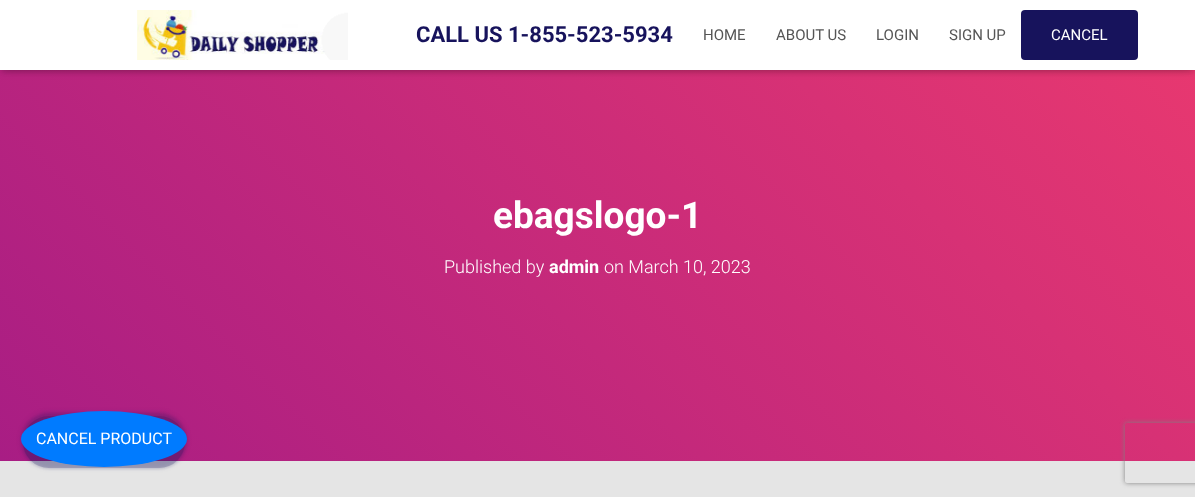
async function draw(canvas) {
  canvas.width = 1195;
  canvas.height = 497;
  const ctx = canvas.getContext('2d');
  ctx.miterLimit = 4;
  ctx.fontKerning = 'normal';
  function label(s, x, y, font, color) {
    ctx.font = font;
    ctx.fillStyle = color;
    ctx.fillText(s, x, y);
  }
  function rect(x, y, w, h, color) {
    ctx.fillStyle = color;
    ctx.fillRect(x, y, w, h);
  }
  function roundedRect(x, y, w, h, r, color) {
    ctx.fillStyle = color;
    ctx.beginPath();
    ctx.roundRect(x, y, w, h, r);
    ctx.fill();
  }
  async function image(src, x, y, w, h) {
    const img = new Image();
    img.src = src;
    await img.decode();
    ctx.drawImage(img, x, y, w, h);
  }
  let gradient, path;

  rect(0, 0, 1195, 497, '#e5e5e5');
  gradient = ctx.createLinearGradient(184, 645, 1012, -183);
  gradient.addColorStop(0, '#a81d84');
  gradient.addColorStop(1, '#ea396f');
  ctx.fillStyle = gradient;
  ctx.fillRect(0, 70, 1195, 391);
  ctx.fillStyle = '#0000001a';
  ctx.filter = 'blur(2.5px)';
  ctx.beginPath();
  ctx.rect(2, 6, 1191, 66);
  ctx.fill();
  ctx.filter = 'none';
  ctx.fillStyle = '#0000001f';
  ctx.filter = 'blur(5px)';
  ctx.beginPath();
  ctx.rect(0, 1, 1195, 70);
  ctx.fill();
  ctx.filter = 'none';
  ctx.fillStyle = '#0000006b';
  ctx.filter = 'blur(5px)';
  ctx.beginPath();
  ctx.rect(6, 7, 1183, 58);
  ctx.fill();
  ctx.filter = 'none';
  rect(0, 0, 1195, 70, '#fff');
  await image('assets/img1.png', 137, 10, 211, 50);
  label('CALL US 1-855-523-5934', 416, 42, 'bold 22px Roboto', '#17135c');
  label('HOME', 703, 40, '15px Roboto', '#555');
  label('ABOUT US', 776, 40, '15px Roboto', '#555');
  label('LOGIN', 876, 40, '15px Roboto', '#555');
  label('SIGN UP', 949, 40, '15px Roboto', '#555');
  roundedRect(1021, 10, 117, 50, 4, '#17135c');
  label('CANCEL', 1051, 40, '15px Roboto', '#fff');
  label('ebagslogo-1', 493, 228, 'bold 37px Roboto', '#fff');
  label('Published by', 444, 273, '300 18px Roboto', '#fff');
  label('admin', 549, 273, 'bold 18px Roboto', '#fff');
  label('on March 10, 2023', 604, 273, '300 18px Roboto', '#fff');
  ctx.fillStyle = '#17135c1f';
  ctx.filter = 'blur(2.5px)';
  ctx.beginPath();
  ctx.roundRect(21, 412, 166, 56, 28);
  ctx.fill();
  ctx.filter = 'none';
  ctx.fillStyle = '#17135c33';
  ctx.filter = 'blur(0.5px)';
  ctx.beginPath();
  ctx.roundRect(23, 416, 162, 52, 26);
  ctx.fill();
  ctx.filter = 'none';
  ctx.fillStyle = '#17135c24';
  ctx.filter = 'blur(1px)';
  ctx.beginPath();
  ctx.roundRect(21, 413, 166, 56, 28);
  ctx.fill();
  ctx.filter = 'none';
  ctx.fillStyle = '#007bff';
  ctx.beginPath();
  ctx.ellipse(104, 439, 83, 28, 0, 0, 2 * Math.PI);
  ctx.fill();
  label('CANCEL PRODUCT', 36, 444, '16px Roboto', '#fff');
  ctx.save();
  path = new Path2D('M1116 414H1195V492H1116ZM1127 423H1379C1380 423 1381 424 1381 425V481C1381 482 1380 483 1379 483H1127C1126 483 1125 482 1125 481V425C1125 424 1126 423 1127 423Z');
  ctx.clip(path, 'evenodd');
  ctx.fillStyle = '#808080';
  ctx.filter = 'blur(2.5px)';
  ctx.beginPath();
  ctx.roundRect(1125, 423, 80, 60, 2);
  ctx.fill();
  ctx.filter = 'none';
  ctx.restore();
}

draw(document.querySelector('canvas'));
